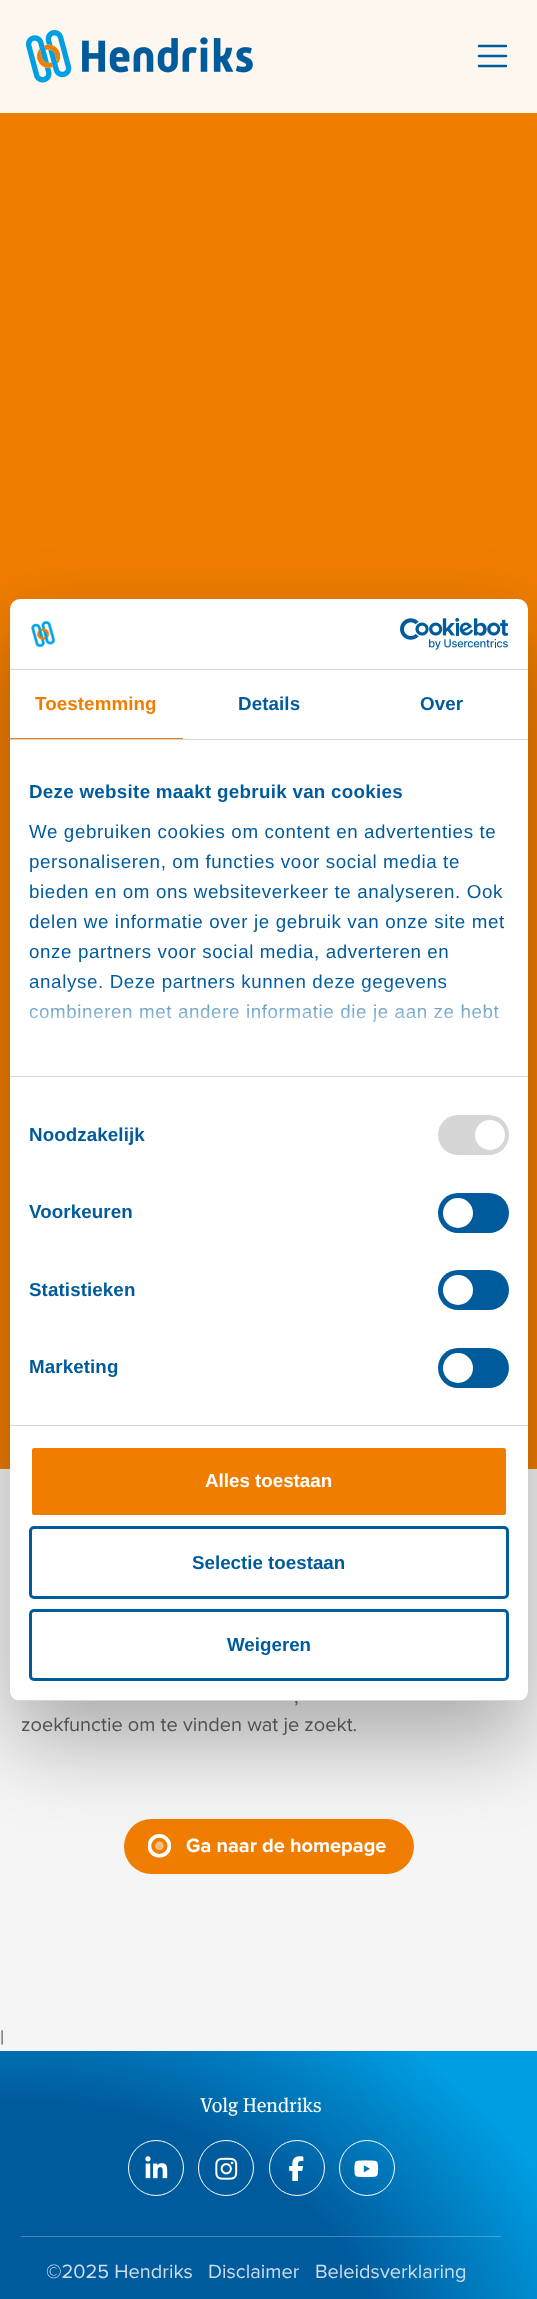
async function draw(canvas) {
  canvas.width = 537;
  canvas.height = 2299;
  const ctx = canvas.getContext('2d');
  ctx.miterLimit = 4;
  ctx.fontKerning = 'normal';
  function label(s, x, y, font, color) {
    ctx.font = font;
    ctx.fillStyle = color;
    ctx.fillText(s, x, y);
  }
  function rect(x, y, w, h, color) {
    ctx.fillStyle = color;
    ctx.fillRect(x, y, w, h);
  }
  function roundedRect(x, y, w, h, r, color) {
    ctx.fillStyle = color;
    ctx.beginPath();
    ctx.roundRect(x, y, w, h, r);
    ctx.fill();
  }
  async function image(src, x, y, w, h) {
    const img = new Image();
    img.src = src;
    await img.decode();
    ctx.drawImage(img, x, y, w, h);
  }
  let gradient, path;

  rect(0, 0, 537, 2299, '#f5f5f5');
  rect(0, 113, 537, 1356, '#ef7d00');
  roundedRect(124, 1819, 290, 55, 27.5, '#ef7d00');
  await image('assets/img4.png', 148, 1834, 23, 24);
  ctx.fillStyle = '#0000004d';
  ctx.filter = 'blur(42.5px)';
  ctx.beginPath();
  ctx.roundRect(10, 639, 518, 1102, 10);
  ctx.fill();
  ctx.filter = 'none';
  roundedRect(10, 599, 518, 1102, 10, '#fff');
  rect(10, 669, 518, 1, '#d6d6d6');
  await image('assets/img1.png', 31, 621, 24, 27);
  await image('assets/img2.png', 400, 618, 109, 32);
  rect(10, 739, 518, 1, '#d6d6d6');
  rect(10, 738, 173, 1, '#ef7d00');
  ctx.letterSpacing = '0.1px';
  label('Toestemming', 35, 710, 'bold 18.75px Liberation Sans', '#ef7d00');
  label('Details', 238, 710, 'bold 18.75px Liberation Sans', '#005b9d');
  label('Over', 420, 710, 'bold 18.75px Liberation Sans', '#005b9d');
  rect(10, 1076, 518, 1, '#d6d6d6');
  ctx.letterSpacing = '0.3px';
  label('Deze website maakt gebruik van cookies', 29, 798, 'bold 18.75px Liberation Sans', '#005b9d');
  ctx.letterSpacing = '0.62px';
  label('We gebruiken cookies om content en advertenties te', 29, 838, '18.75px Liberation Sans', '#005b9d');
  label('personaliseren, om functies voor social media te', 29, 868, '18.75px Liberation Sans', '#005b9d');
  label('bieden en om ons websiteverkeer te analyseren. Ook', 29, 898, '18.75px Liberation Sans', '#005b9d');
  label('delen we informatie over je gebruik van onze site met', 29, 928, '18.75px Liberation Sans', '#005b9d');
  label('onze partners voor social media, adverteren en', 29, 958, '18.75px Liberation Sans', '#005b9d');
  label('analyse. Deze partners kunnen deze gegevens', 29, 988, '18.75px Liberation Sans', '#005b9d');
  label('combineren met andere informatie die je aan ze hebt', 29, 1018, '18.75px Liberation Sans', '#005b9d');
  gradient = ctx.createLinearGradient(261, 1077, 261, 983);
  gradient.addColorStop(0, '#fff');
  gradient.addColorStop(0.5, '#ffffffcc');
  gradient.addColorStop(1, '#ffffff00');
  ctx.fillStyle = gradient;
  ctx.fillRect(29, 984, 470, 38);
  rect(10, 1425, 518, 1, '#d6d6d6');
  ctx.letterSpacing = '0.1px';
  label('Noodzakelijk', 29, 1141, 'bold 18.75px Liberation Sans', '#005b9d');
  roundedRect(438, 1115, 71, 40, 20, '#d6d6d6');
  ctx.fillStyle = '#fff';
  ctx.beginPath();
  ctx.arc(490, 1135, 15, 0, 2 * Math.PI);
  ctx.fill();
  label('Voorkeuren', 29, 1218, 'bold 18.75px Liberation Sans', '#005b9d');
  roundedRect(438, 1193, 71, 40, 20, '#005b9d');
  ctx.fillStyle = '#fff';
  ctx.beginPath();
  ctx.arc(458, 1213, 15, 0, 2 * Math.PI);
  ctx.fill();
  label('Statistieken', 29, 1296, 'bold 18.75px Liberation Sans', '#005b9d');
  roundedRect(438, 1270, 71, 40, 20, '#005b9d');
  ctx.fillStyle = '#fff';
  ctx.beginPath();
  ctx.arc(458, 1290, 15, 0, 2 * Math.PI);
  ctx.fill();
  label('Marketing', 29, 1373, 'bold 18.75px Liberation Sans', '#005b9d');
  roundedRect(438, 1348, 71, 40, 20, '#005b9d');
  ctx.fillStyle = '#fff';
  ctx.beginPath();
  ctx.arc(458, 1368, 15, 0, 2 * Math.PI);
  ctx.fill();
  ctx.save();
  ctx.beginPath();
  ctx.roundRect(10, 599, 518, 1102, 10);
  ctx.clip();
  rect(10, 1700, 518, 1, '#d6d6d6');
  ctx.restore();
  ctx.fillStyle = '#ef7d00';
  ctx.beginPath();
  ctx.roundRect(30.5, 1446.5, 477, 70, 3.5);
  ctx.fill();
  ctx.strokeStyle = '#fff';
  ctx.lineWidth = 3;
  ctx.stroke();
  ctx.letterSpacing = '0px';
  label('Alles toestaan', 205, 1487, 'bold 18.75px Liberation Sans', '#fff');
  ctx.beginPath();
  ctx.roundRect(30.5, 1527.5, 477, 70, 3.5);
  ctx.strokeStyle = '#005b9d';
  ctx.stroke();
  label('Selectie toestaan', 192, 1569, 'bold 18.75px Liberation Sans', '#005b9d');
  ctx.beginPath();
  ctx.roundRect(30.5, 1610.5, 477, 69, 3.5);
  ctx.stroke();
  label('Weigeren', 227, 1651, 'bold 18.75px Liberation Sans', '#005b9d');
  rect(0, 0, 537, 113, '#fef7f0');
  await image('assets/img3.png', 26, 30, 227, 53);
  path = new Path2D('M479 56H506M479 46H506M479 66H506');
  ctx.lineWidth = 2.5;
  ctx.lineCap = 'round';
  ctx.lineJoin = 'round';
  ctx.stroke(path);
  label(',', 294, 1703, '20px Proxima Nova', '#4f4f4f');
  label('zoekfunctie om te vinden wat je zoekt.', 21, 1731, '20px Proxima Nova', '#4f4f4f');
  label('Ga naar de homepage', 186, 1852, 'bold 20px Proxima Nova', '#fff');
  label('|', 0, 2044, '20px Proxima Nova', '#4f4f4f');
  gradient = ctx.createRadialGradient(14, 3099.55, 0, 14, 3099.55, 601);
  gradient.addColorStop(0.63, '#005b9d');
  gradient.addColorStop(1, '#009fe3');
  ctx.fillStyle = gradient;
  ctx.beginPath();
  ctx.rect(0, 2051, 537, 248);
  ctx.save();
  ctx.clip();
  ctx.scale(1, 464 / 601);
  ctx.fillRect(0, 0, 537, 2978);
  ctx.restore();
  gradient = ctx.createRadialGradient(14, 3099.55, 0, 14, 3099.55, 601);
  gradient.addColorStop(0.63, '#4084b6');
  gradient.addColorStop(1, '#40b7ea');
  ctx.fillStyle = gradient;
  ctx.beginPath();
  ctx.rect(21, 2236, 480, 1);
  ctx.save();
  ctx.clip();
  ctx.scale(1, 464 / 601);
  ctx.fillRect(0, 0, 537, 2978);
  ctx.restore();
  label('Volg Hendriks', 200, 2112, '20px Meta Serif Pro', '#fff');
  ctx.beginPath();
  ctx.arc(156, 2168, 27.5, 0, 2 * Math.PI);
  ctx.strokeStyle = '#fff';
  ctx.lineWidth = 1;
  ctx.stroke();
  await image('assets/img5.png', 145, 2156, 23, 23);
  ctx.beginPath();
  ctx.arc(226, 2168, 27.5, 0, 2 * Math.PI);
  ctx.stroke();
  await image('assets/img6.png', 215, 2157, 23, 23);
  ctx.beginPath();
  ctx.arc(297, 2168, 27.5, 0, 2 * Math.PI);
  ctx.stroke();
  await image('assets/img7.png', 289, 2156, 15, 25);
  ctx.beginPath();
  ctx.arc(367, 2168, 27.5, 0, 2 * Math.PI);
  ctx.stroke();
  await image('assets/img8.png', 354, 2160, 25, 18);
  label('©2025 Hendriks', 46, 2278, '20px Proxima Nova', '#ccdeeb');
  label('Disclaimer', 208, 2278, '20px Proxima Nova', '#ccdeeb');
  label('Beleidsverklaring', 315, 2278, '20px Proxima Nova', '#ccdeeb');
}

draw(document.querySelector('canvas'));
